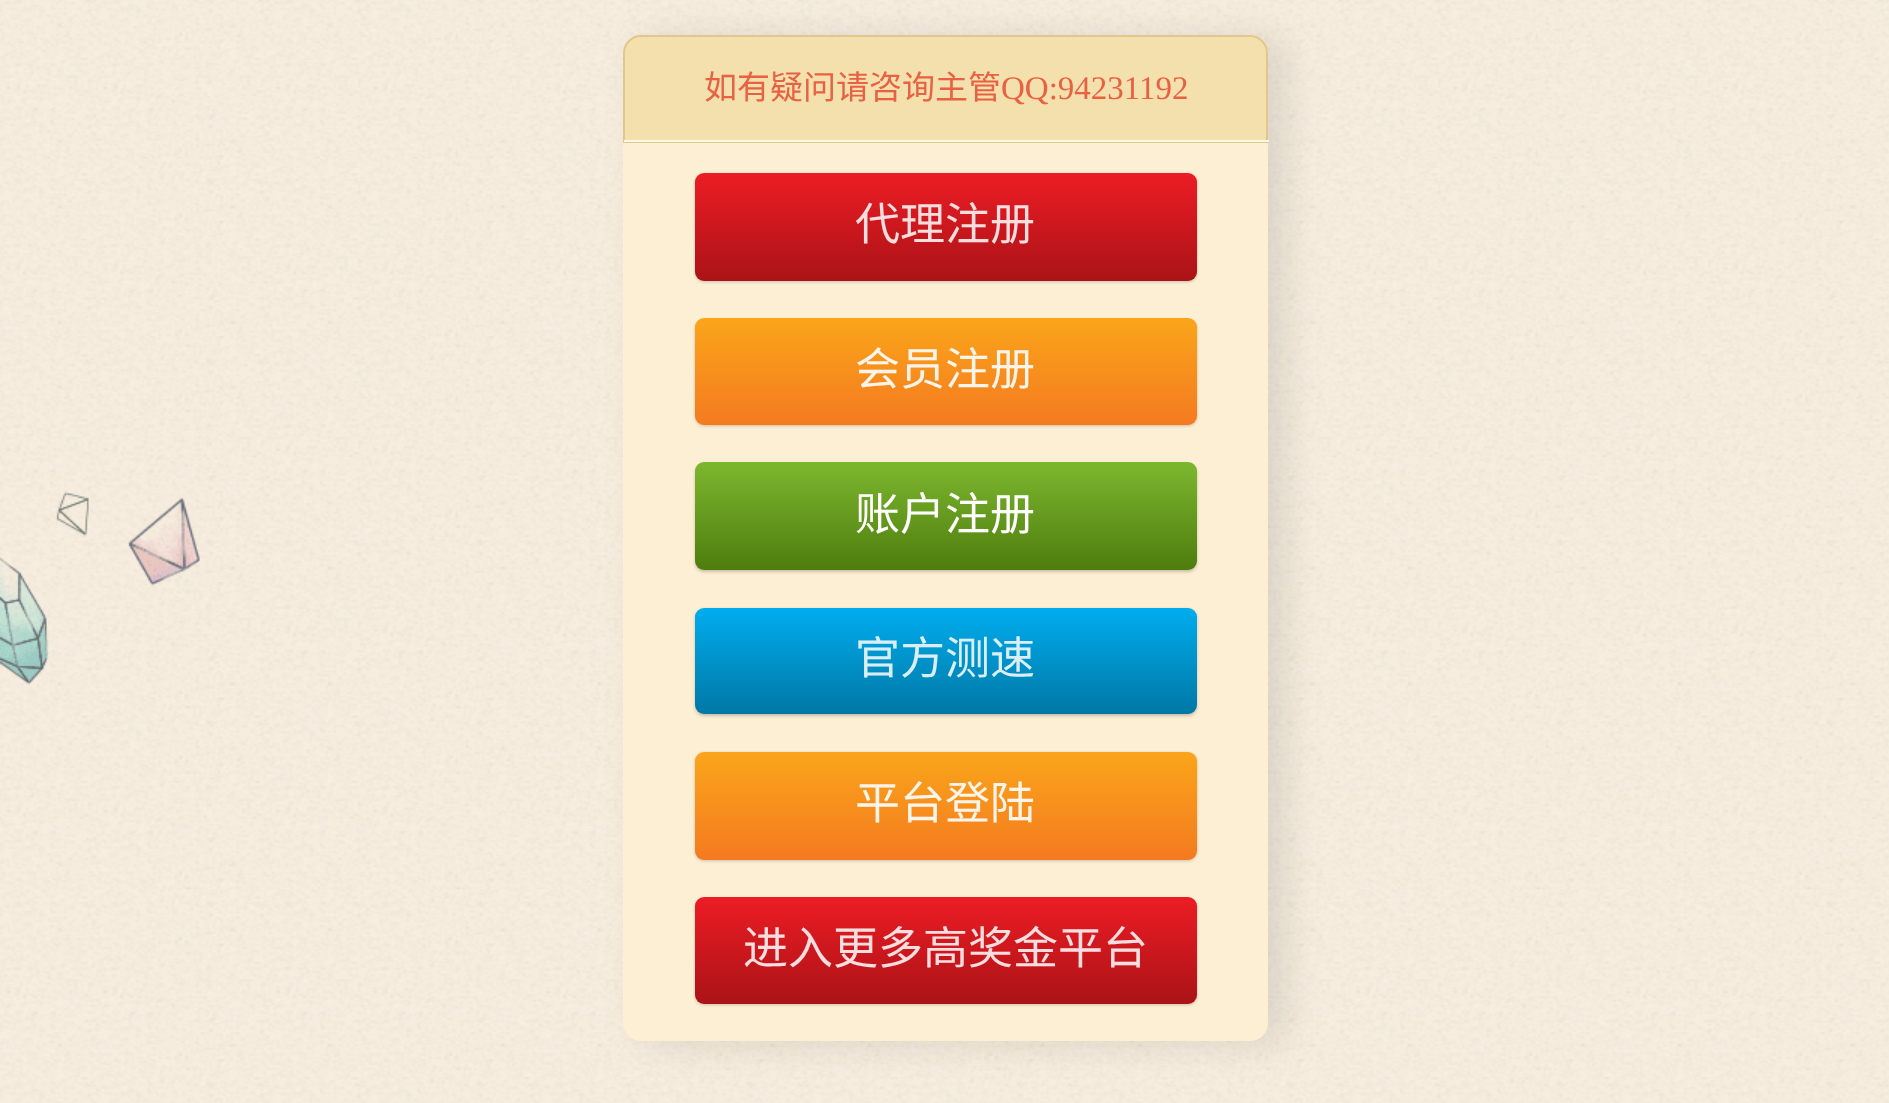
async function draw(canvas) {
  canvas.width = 1889;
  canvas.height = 1103;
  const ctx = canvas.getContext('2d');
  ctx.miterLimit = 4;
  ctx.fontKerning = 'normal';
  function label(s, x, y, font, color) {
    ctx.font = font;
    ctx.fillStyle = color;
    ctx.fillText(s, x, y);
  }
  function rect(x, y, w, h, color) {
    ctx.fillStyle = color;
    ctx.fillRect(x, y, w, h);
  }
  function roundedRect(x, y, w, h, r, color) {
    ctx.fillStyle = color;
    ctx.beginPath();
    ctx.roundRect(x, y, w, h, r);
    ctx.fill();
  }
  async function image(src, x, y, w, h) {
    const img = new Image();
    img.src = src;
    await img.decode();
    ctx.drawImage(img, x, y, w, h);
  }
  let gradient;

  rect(0, 0, 1889, 1103, '#fff');
  await image('assets/img1.png', 0, 0, 1889, 1103);
  ctx.fillStyle = '#0000001a';
  ctx.filter = 'blur(18px)';
  ctx.beginPath();
  ctx.roundRect(641, 38, 645, 1006, 18);
  ctx.fill();
  ctx.filter = 'none';
  roundedRect(623, 35, 645, 1006, 18, '#fdefd3');
  ctx.fillStyle = '#f4e0ad';
  ctx.beginPath();
  ctx.roundRect(624, 36, 643, 106, [17, 17, 0, 0]);
  ctx.fill();
  ctx.strokeStyle = '#e2c78c';
  ctx.lineWidth = 2;
  ctx.stroke();
  rect(624, 140, 645, 2, '#fdf9e5');
  label('如有疑问请咨询主管', 704, 99, '33px Noto Sans CJK SC', '#e86143');
  label('QQ:94231192', 1001, 99, '33px Liberation Serif', '#e86143');
  ctx.fillStyle = '#00000033';
  ctx.filter = 'blur(1.5px)';
  ctx.beginPath();
  ctx.roundRect(695, 174, 502, 108, 9);
  ctx.fill();
  ctx.filter = 'none';
  gradient = ctx.createLinearGradient(695, 173, 695, 281);
  gradient.addColorStop(0, '#ed1c24');
  gradient.addColorStop(1, '#aa1317');
  ctx.fillStyle = gradient;
  ctx.beginPath();
  ctx.roundRect(695, 173, 502, 108, 9);
  ctx.fill();
  label('代理注册', 855, 240, '45px Noto Sans CJK SC', '#faddde');
  ctx.fillStyle = '#00000033';
  ctx.filter = 'blur(1.5px)';
  ctx.beginPath();
  ctx.roundRect(695, 320, 502, 106, 9);
  ctx.fill();
  ctx.filter = 'none';
  gradient = ctx.createLinearGradient(695, 318, 695, 425);
  gradient.addColorStop(0, '#faa51a');
  gradient.addColorStop(1, '#f47a20');
  ctx.fillStyle = gradient;
  ctx.beginPath();
  ctx.roundRect(695, 318, 502, 107, 9);
  ctx.fill();
  label('会员注册', 855, 385, '45px Noto Sans CJK SC', '#fef4e9');
  ctx.fillStyle = '#00000033';
  ctx.filter = 'blur(1.5px)';
  ctx.beginPath();
  ctx.roundRect(695, 464, 502, 108, 9);
  ctx.fill();
  ctx.filter = 'none';
  gradient = ctx.createLinearGradient(695, 462, 695, 570);
  gradient.addColorStop(0, '#7db72f');
  gradient.addColorStop(1, '#4e7d0e');
  ctx.fillStyle = gradient;
  ctx.beginPath();
  ctx.roundRect(695, 462, 502, 108, 9);
  ctx.fill();
  label('账户注册', 855, 530, '45px Noto Sans CJK SC', '#fff');
  ctx.fillStyle = '#00000033';
  ctx.filter = 'blur(1.5px)';
  ctx.beginPath();
  ctx.roundRect(695, 609, 502, 107, 9);
  ctx.fill();
  ctx.filter = 'none';
  gradient = ctx.createLinearGradient(695, 608, 695, 714);
  gradient.addColorStop(0, '#00adee');
  gradient.addColorStop(1, '#0078a5');
  ctx.fillStyle = gradient;
  ctx.beginPath();
  ctx.roundRect(695, 608, 502, 106, 9);
  ctx.fill();
  label('官方测速', 855, 674, '45px Noto Sans CJK SC', '#d9eef7');
  ctx.fillStyle = '#00000033';
  ctx.filter = 'blur(1.5px)';
  ctx.beginPath();
  ctx.roundRect(695, 753, 502, 108, 9);
  ctx.fill();
  ctx.filter = 'none';
  gradient = ctx.createLinearGradient(695, 752, 695, 860);
  gradient.addColorStop(0, '#faa51a');
  gradient.addColorStop(1, '#f47a20');
  ctx.fillStyle = gradient;
  ctx.beginPath();
  ctx.roundRect(695, 752, 502, 108, 9);
  ctx.fill();
  label('平台登陆', 855, 819, '45px Noto Sans CJK SC', '#fef4e9');
  ctx.fillStyle = '#00000033';
  ctx.filter = 'blur(1.5px)';
  ctx.beginPath();
  ctx.roundRect(695, 899, 502, 106, 9);
  ctx.fill();
  ctx.filter = 'none';
  gradient = ctx.createLinearGradient(695, 897, 695, 1004);
  gradient.addColorStop(0, '#ed1c24');
  gradient.addColorStop(1, '#aa1317');
  ctx.fillStyle = gradient;
  ctx.beginPath();
  ctx.roundRect(695, 897, 502, 107, 9);
  ctx.fill();
  label('进入更多高奖金平台', 743, 964, '45px Noto Sans CJK SC', '#faddde');
}

draw(document.querySelector('canvas'));
